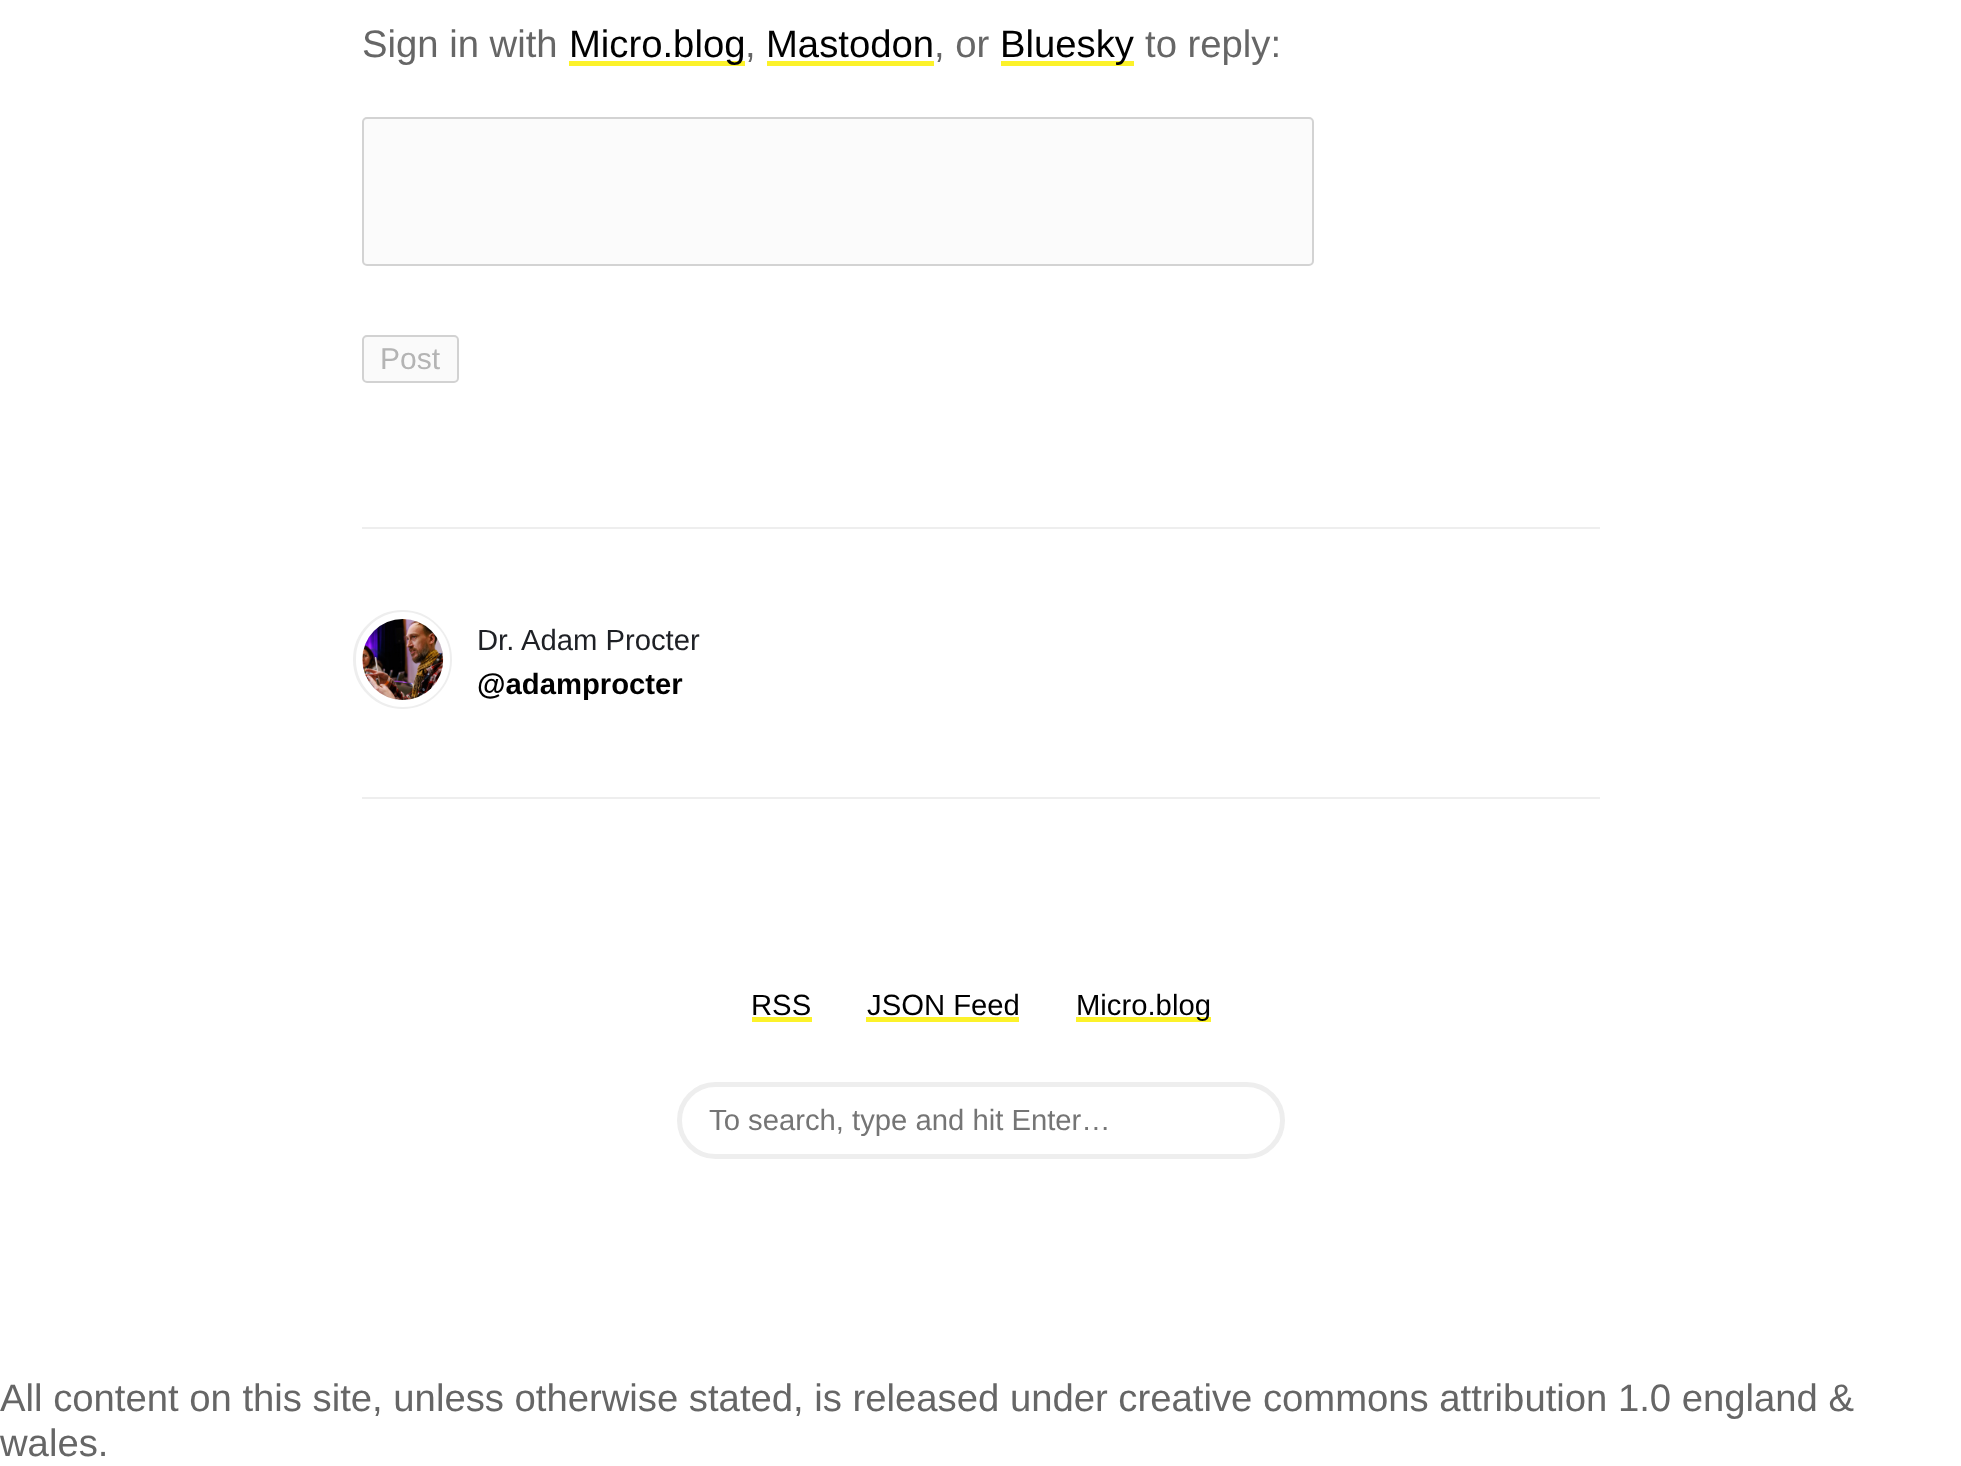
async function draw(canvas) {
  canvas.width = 1961;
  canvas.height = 1466;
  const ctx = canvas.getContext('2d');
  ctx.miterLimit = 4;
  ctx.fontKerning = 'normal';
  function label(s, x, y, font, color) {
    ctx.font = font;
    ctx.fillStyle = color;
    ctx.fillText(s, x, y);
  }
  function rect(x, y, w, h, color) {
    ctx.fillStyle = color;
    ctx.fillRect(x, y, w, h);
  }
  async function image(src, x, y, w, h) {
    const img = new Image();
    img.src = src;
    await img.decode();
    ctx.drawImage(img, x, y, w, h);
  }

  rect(0, 0, 1961, 1466, '#fff');
  label('Sign in with', 362, 57, '38.25px Liberation Sans', '#666');
  rect(569, 61, 176, 5, '#fcf22a');
  label('Micro.blog', 569, 57, '38.25px Liberation Sans', '#000');
  label(',', 745, 57, '38.25px Liberation Sans', '#666');
  label('Mastodon', 766, 57, '38.25px Liberation Sans', '#000');
  rect(767, 61, 167, 5, '#fcf22a');
  label(', or', 934, 57, '38.25px Liberation Sans', '#666');
  rect(1001, 61, 133, 5, '#fcf22a');
  label('Bluesky', 1000, 57, '38.25px Liberation Sans', '#000');
  label('to reply:', 1145, 57, '38.25px Liberation Sans', '#666');
  ctx.fillStyle = '#fbfbfb';
  ctx.beginPath();
  ctx.roundRect(363, 118, 950, 147, 4);
  ctx.fill();
  ctx.strokeStyle = '#d3d3d3';
  ctx.lineWidth = 2;
  ctx.stroke();
  ctx.fillStyle = '#fafafa';
  ctx.beginPath();
  ctx.roundRect(363, 336, 95, 46, 4);
  ctx.fill();
  ctx.strokeStyle = '#d2d2d2';
  ctx.stroke();
  label('Post', 380, 369, '30px Liberation Sans', '#b4b4b4');
  rect(362, 527, 1238, 2, '#eee');
  rect(362, 797, 1238, 2, '#eee');
  ctx.beginPath();
  ctx.arc(402.5, 659.5, 45, 0, 2 * Math.PI);
  ctx.strokeStyle = '#eee';
  ctx.lineWidth = 9;
  ctx.stroke();
  ctx.beginPath();
  ctx.roundRect(359.5, 615.5, 87, 88, 43.5);
  ctx.strokeStyle = '#fff';
  ctx.lineWidth = 7;
  ctx.stroke();
  await image('assets/img1.png', 362, 619, 82, 81);
  label('Dr. Adam Procter', 477, 650, '29.25px Liberation Sans', '#1e2025');
  label('@adamprocter', 477, 694, 'bold 29.25px Liberation Sans', '#000');
  label('RSS', 751, 1015, '29.25px Liberation Sans', '#000');
  rect(752, 1017, 60, 5, '#fcf22a');
  label('JSON Feed', 867, 1015, '29.25px Liberation Sans', '#000');
  rect(866, 1017, 153, 5, '#fcf22a');
  rect(1076, 1017, 135, 5, '#fcf22a');
  label('Micro.blog', 1076, 1015, '29.25px Liberation Sans', '#000');
  ctx.beginPath();
  ctx.roundRect(679.5, 1084.5, 603, 72, 36);
  ctx.strokeStyle = '#eee';
  ctx.lineWidth = 5;
  ctx.stroke();
  label('To search, type and hit Enter…', 709, 1130, '29.25px Liberation Sans', '#757575');
  label('All content on this site, unless otherwise stated, is released under creative commons attribution 1.0 england &', 0, 1411, '38.25px Liberation Sans', '#666');
  label('wales.', 0, 1456, '38.25px Liberation Sans', '#666');
}

draw(document.querySelector('canvas'));
